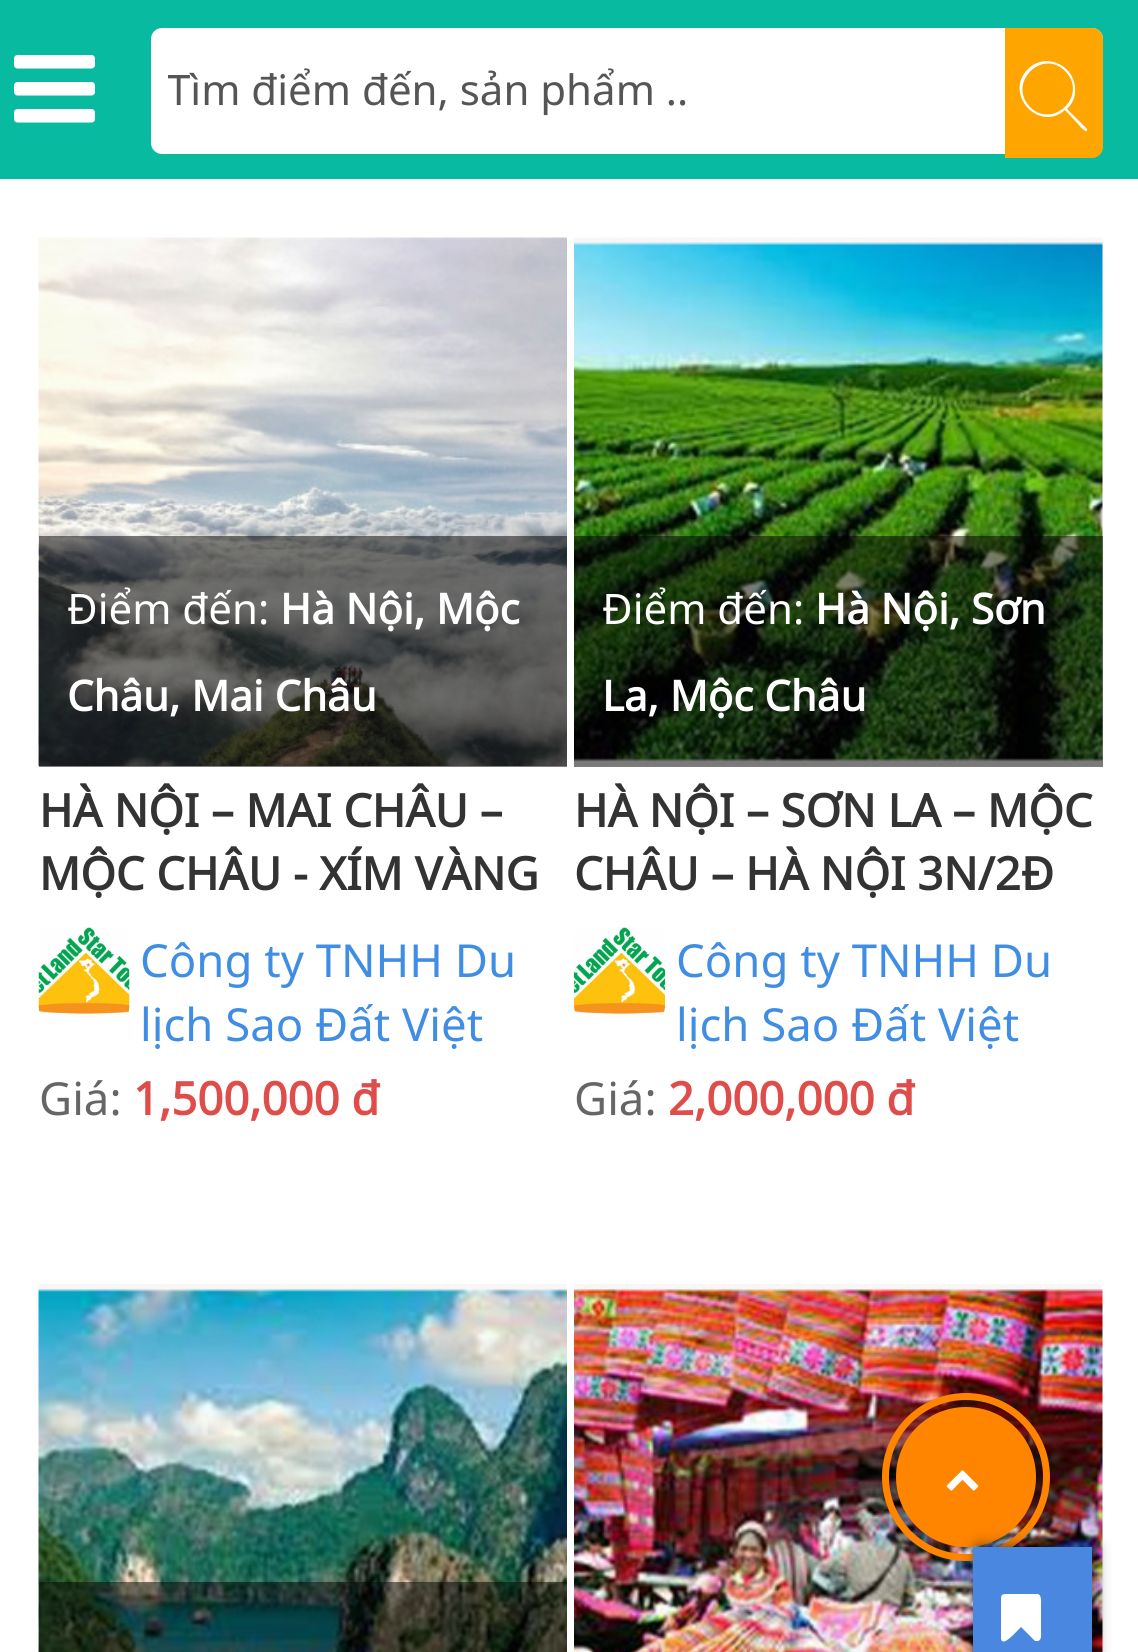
#include <cairo.h>
#include <math.h>
#include <stddef.h>


static void round_rect(cairo_t *cr, double x, double y, double w, double h, double r) {
    cairo_new_sub_path(cr);
    cairo_arc(cr, x + w - r, y + h - r, r, 0, M_PI / 2);
    cairo_arc(cr, x + r, y + h - r, r, M_PI / 2, M_PI);
    cairo_arc(cr, x + r, y + r, r, M_PI, 1.5 * M_PI);
    cairo_arc(cr, x + w - r, y + r, r, 1.5 * M_PI, 2 * M_PI);
    cairo_close_path(cr);
}

static void shadow(cairo_t *cr, double x, double y, double w, double h, double r, double blur, double alpha) {
    cairo_push_group_with_content(cr, CAIRO_CONTENT_ALPHA);
    cairo_set_operator(cr, CAIRO_OPERATOR_SOURCE);
    for (int i = 15; i >= -15 && fmin(w, h) + blur * i / 3 > 0; i -= 2) {
        double e = blur * i / 6;
        cairo_set_source_rgba(cr, 0, 0, 0, alpha * erfc((i - 1) / 8.5) / 2);
        round_rect(cr, x - e, y - e, w + 2 * e, h + 2 * e, fmax(0, fmin(r + e + blur * .6, fmin(w, h) / 2 + e)));
        cairo_fill(cr);
    }
    cairo_pattern_t *soft = cairo_pop_group(cr);
    cairo_mask(cr, soft);
    cairo_pattern_destroy(soft);
}

static void picture(cairo_t *cr, const char *path, double x, double y, double w, double h) {
    cairo_surface_t *image = cairo_image_surface_create_from_png(path);
    cairo_save(cr);
    cairo_set_source_surface(cr, image, x, y);
    cairo_rectangle(cr, x, y, w, h);
    cairo_fill(cr);
    cairo_restore(cr);
    cairo_surface_destroy(image);
}

int main(void) {
    cairo_surface_t *surface = cairo_image_surface_create(CAIRO_FORMAT_RGB24, 1138, 1652);
    cairo_t *cr = cairo_create(surface);
    cairo_font_options_t *options = cairo_font_options_create();
    cairo_font_options_set_hint_metrics(options, CAIRO_HINT_METRICS_OFF);
    cairo_font_options_set_hint_style(options, CAIRO_HINT_STYLE_NONE);
    cairo_set_font_options(cr, options);
    cairo_set_miter_limit(cr, 4);
    cairo_set_source_rgb(cr, 1, 1, 1);
    cairo_paint(cr);
    cairo_set_source_rgb(cr, 0.035, 0.729, 0.627);
    cairo_rectangle(cr, 0, 0, 1138, 179);
    cairo_fill(cr);
    picture(cr, "img1.png", 14, 55, 81, 68);
    cairo_set_source_rgb(cr, 1, 1, 1);
    round_rect(cr, 151, 28, 952, 126, 11);
    cairo_fill(cr);
    round_rect(cr, 151, 28, 941, 126, 14);
    cairo_fill(cr);
    cairo_save(cr);
    cairo_rectangle(cr, 168, 60, 907, 59);
    cairo_clip(cr);
    cairo_select_font_face(cr, "Noto Sans", CAIRO_FONT_SLANT_NORMAL, CAIRO_FONT_WEIGHT_NORMAL);
    cairo_set_font_size(cr, 42);
    cairo_set_source_rgb(cr, 0.333, 0.333, 0.333);
    cairo_move_to(cr, 167, 105);
    cairo_show_text(cr, "Tìm điểm đến, sản phẩm ..");
    cairo_restore(cr);
    cairo_set_source_rgb(cr, 1, 0.647, 0);
    cairo_new_path(cr);
    cairo_move_to(cr, 1005, 28);
    cairo_line_to(cr, 1092, 28);
    cairo_curve_to(cr, 1098, 28, 1103, 33, 1103, 39);
    cairo_line_to(cr, 1103, 147);
    cairo_curve_to(cr, 1103, 153, 1098, 158, 1092, 158);
    cairo_line_to(cr, 1005, 158);
    cairo_close_path(cr);
    cairo_fill(cr);
    cairo_set_source_rgb(cr, 1, 1, 1);
    cairo_new_path(cr);
    cairo_move_to(cr, 1087, 129);
    cairo_curve_to(cr, 1087, 130, 1087, 131, 1087, 131);
    cairo_curve_to(cr, 1084, 132, 1079, 125, 1078, 124);
    cairo_line_to(cr, 1065, 110);
    cairo_curve_to(cr, 1039, 133, 1003, 94, 1028, 69);
    cairo_curve_to(cr, 1046, 51, 1077, 66, 1075, 92);
    cairo_curve_to(cr, 1075, 98, 1072, 104, 1067, 109);
    cairo_close_path(cr);
    cairo_move_to(cr, 1030, 107);
    cairo_curve_to(cr, 1053, 130, 1089, 95, 1065, 71);
    cairo_curve_to(cr, 1042, 48, 1007, 83, 1030, 107);
    cairo_close_path(cr);
    cairo_fill(cr);
    picture(cr, "img7.png", 574, 1284, 529, 368);
    cairo_set_source_rgb(cr, 1, 0.518, 0);
    cairo_arc(cr, 966, 1477, 70, 0, 2 * M_PI);
    cairo_fill(cr);
    picture(cr, "img8.png", 946, 1470, 33, 21);
    cairo_arc(cr, 966, 1477, 80.5, 0, 2 * M_PI);
    cairo_set_line_width(cr, 7);
    cairo_stroke(cr);
    cairo_set_source_rgb(cr, 0, 0, 0);
    shadow(cr, 977, 1547, 119, 105, 0, 7, 0.62);
    cairo_set_source_rgb(cr, 0.286, 0.529, 0.882);
    cairo_rectangle(cr, 973, 1547, 119, 105);
    cairo_fill(cr);
    cairo_set_source_rgb(cr, 1, 1, 1);
    cairo_new_path(cr);
    cairo_move_to(cr, 1037, 1594);
    cairo_curve_to(cr, 1042, 1594, 1041, 1602, 1041, 1604);
    cairo_line_to(cr, 1041, 1631);
    cairo_curve_to(cr, 1041, 1634, 1042, 1640, 1038, 1641);
    cairo_line_to(cr, 1035, 1641);
    cairo_line_to(cr, 1021, 1627);
    cairo_curve_to(cr, 1014, 1634, 1003, 1647, 1001, 1639);
    cairo_line_to(cr, 1001, 1604);
    cairo_curve_to(cr, 1001, 1594, 1000, 1594, 1010, 1594);
    cairo_close_path(cr);
    cairo_fill(cr);
    picture(cr, "img2.png", 38, 237, 529, 529);
    cairo_set_source_rgba(cr, 0.008, 0.008, 0.008, 0.51);
    cairo_rectangle(cr, 39, 536, 528, 231);
    cairo_fill(cr);
    cairo_select_font_face(cr, "Noto Sans", CAIRO_FONT_SLANT_NORMAL, CAIRO_FONT_WEIGHT_NORMAL);
    cairo_set_font_size(cr, 42);
    cairo_set_source_rgb(cr, 1, 1, 1);
    cairo_move_to(cr, 67, 624);
    cairo_show_text(cr, "Điểm đến:");
    cairo_select_font_face(cr, "Noto Sans", CAIRO_FONT_SLANT_NORMAL, CAIRO_FONT_WEIGHT_BOLD);
    cairo_move_to(cr, 280, 624);
    cairo_show_text(cr, "Hà Nội, Mộc");
    cairo_move_to(cr, 67, 711);
    cairo_show_text(cr, "Châu, Mai Châu");
    cairo_set_font_size(cr, 45.5);
    cairo_set_source_rgb(cr, 0.2, 0.2, 0.2);
    cairo_move_to(cr, 39, 827);
    cairo_show_text(cr, "HÀ NỘI – MAI CHÂU –");
    cairo_move_to(cr, 39, 890);
    cairo_show_text(cr, "MỘC CHÂU - XÍM VÀNG");
    picture(cr, "img3.png", 38, 927, 92, 90);
    cairo_select_font_face(cr, "Noto Sans", CAIRO_FONT_SLANT_NORMAL, CAIRO_FONT_WEIGHT_NORMAL);
    cairo_set_source_rgb(cr, 0.251, 0.553, 0.894);
    cairo_move_to(cr, 140, 977);
    cairo_show_text(cr, "Công ty TNHH Du");
    cairo_move_to(cr, 140, 1041);
    cairo_show_text(cr, "lịch Sao Đất Việt");
    cairo_set_source_rgb(cr, 0.4, 0.4, 0.4);
    cairo_move_to(cr, 39, 1115);
    cairo_show_text(cr, "Giá:");
    cairo_select_font_face(cr, "Noto Sans", CAIRO_FONT_SLANT_NORMAL, CAIRO_FONT_WEIGHT_BOLD);
    cairo_set_source_rgb(cr, 0.875, 0.302, 0.294);
    cairo_move_to(cr, 133, 1115);
    cairo_show_text(cr, "1,500,000 đ");
    picture(cr, "img4.png", 574, 237, 529, 529);
    cairo_set_source_rgba(cr, 0.008, 0.008, 0.008, 0.51);
    cairo_rectangle(cr, 574, 536, 529, 231);
    cairo_fill(cr);
    cairo_select_font_face(cr, "Noto Sans", CAIRO_FONT_SLANT_NORMAL, CAIRO_FONT_WEIGHT_NORMAL);
    cairo_set_font_size(cr, 42);
    cairo_set_source_rgb(cr, 1, 1, 1);
    cairo_move_to(cr, 602, 624);
    cairo_show_text(cr, "Điểm đến:");
    cairo_select_font_face(cr, "Noto Sans", CAIRO_FONT_SLANT_NORMAL, CAIRO_FONT_WEIGHT_BOLD);
    cairo_move_to(cr, 815, 624);
    cairo_show_text(cr, "Hà Nội, Sơn");
    cairo_move_to(cr, 602, 711);
    cairo_show_text(cr, "La, Mộc Châu");
    cairo_set_font_size(cr, 45.5);
    cairo_set_source_rgb(cr, 0.2, 0.2, 0.2);
    cairo_move_to(cr, 574, 827);
    cairo_show_text(cr, "HÀ NỘI – SƠN LA – MỘC");
    cairo_move_to(cr, 574, 890);
    cairo_show_text(cr, "CHÂU – HÀ NỘI 3N/2Đ");
    picture(cr, "img5.png", 574, 927, 91, 90);
    cairo_select_font_face(cr, "Noto Sans", CAIRO_FONT_SLANT_NORMAL, CAIRO_FONT_WEIGHT_NORMAL);
    cairo_set_source_rgb(cr, 0.251, 0.553, 0.894);
    cairo_move_to(cr, 676, 977);
    cairo_show_text(cr, "Công ty TNHH Du");
    cairo_move_to(cr, 676, 1041);
    cairo_show_text(cr, "lịch Sao Đất Việt");
    cairo_set_source_rgb(cr, 0.4, 0.4, 0.4);
    cairo_move_to(cr, 574, 1115);
    cairo_show_text(cr, "Giá:");
    cairo_select_font_face(cr, "Noto Sans", CAIRO_FONT_SLANT_NORMAL, CAIRO_FONT_WEIGHT_BOLD);
    cairo_set_source_rgb(cr, 0.875, 0.302, 0.294);
    cairo_move_to(cr, 668, 1115);
    cairo_show_text(cr, "2,000,000 đ");
    picture(cr, "img6.png", 38, 1284, 529, 368);
    cairo_set_source_rgba(cr, 0.008, 0.008, 0.008, 0.51);
    cairo_rectangle(cr, 39, 1582, 528, 70);
    cairo_fill(cr);
    cairo_surface_write_to_png(surface, "page.png");
    cairo_font_options_destroy(options);
    cairo_destroy(cr);
    cairo_surface_destroy(surface);
    return 0;
}
